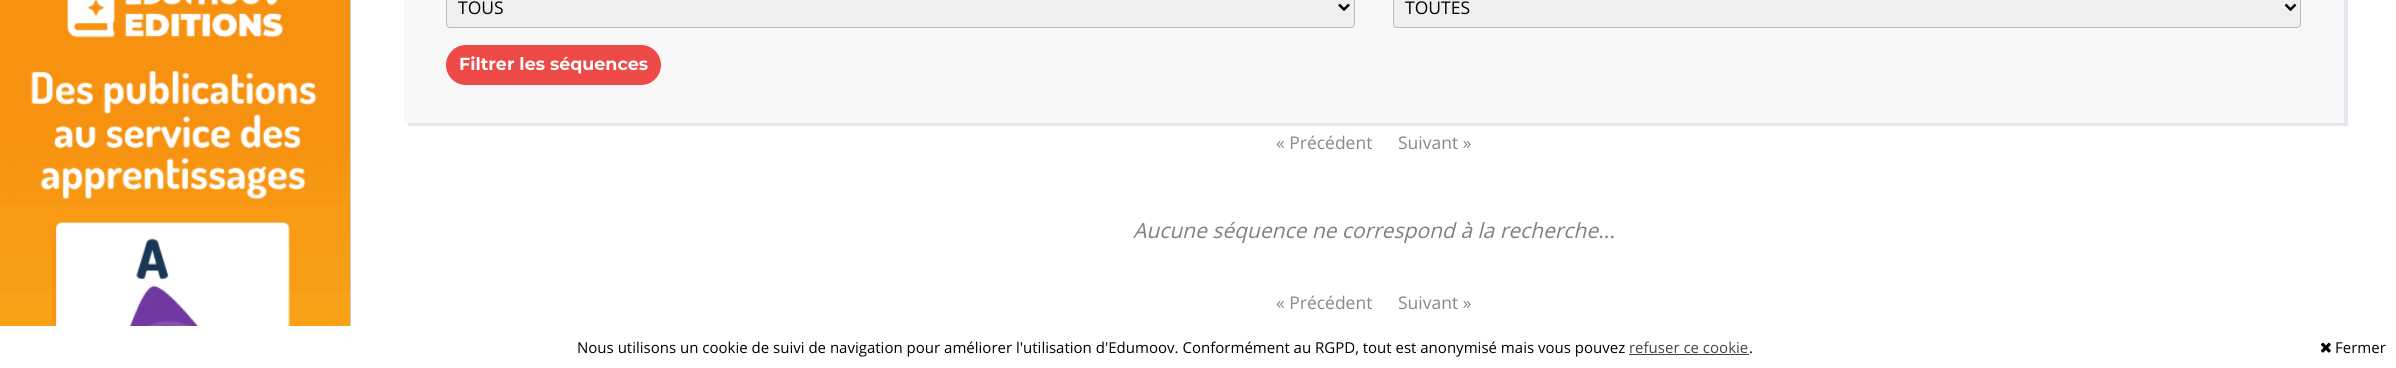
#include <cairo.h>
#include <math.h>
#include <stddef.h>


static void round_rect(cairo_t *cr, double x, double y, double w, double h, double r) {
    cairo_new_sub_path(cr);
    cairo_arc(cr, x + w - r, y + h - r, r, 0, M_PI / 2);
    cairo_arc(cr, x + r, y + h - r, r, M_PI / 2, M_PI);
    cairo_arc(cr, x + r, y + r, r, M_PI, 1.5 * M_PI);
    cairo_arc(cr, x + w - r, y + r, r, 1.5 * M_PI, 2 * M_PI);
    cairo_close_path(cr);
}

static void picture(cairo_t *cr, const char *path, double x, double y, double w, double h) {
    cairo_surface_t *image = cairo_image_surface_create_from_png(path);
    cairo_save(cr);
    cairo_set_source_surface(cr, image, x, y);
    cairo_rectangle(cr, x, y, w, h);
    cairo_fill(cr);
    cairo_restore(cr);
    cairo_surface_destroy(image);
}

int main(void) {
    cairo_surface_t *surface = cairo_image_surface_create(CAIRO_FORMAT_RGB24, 2396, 368);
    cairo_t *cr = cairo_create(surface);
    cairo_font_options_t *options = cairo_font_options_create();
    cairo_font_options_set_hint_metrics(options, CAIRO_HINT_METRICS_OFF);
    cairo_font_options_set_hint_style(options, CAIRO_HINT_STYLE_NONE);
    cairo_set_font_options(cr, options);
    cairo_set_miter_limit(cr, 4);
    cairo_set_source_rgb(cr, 1, 1, 1);
    cairo_paint(cr);
    picture(cr, "img1.png", 0, 0, 350, 326);
    cairo_set_source_rgb(cr, 0.8, 0.8, 0.8);
    cairo_rectangle(cr, 350, 0, 1, 326);
    cairo_fill(cr);
    cairo_set_source_rgb(cr, 0.902, 0.902, 0.941);
    cairo_new_path(cr);
    cairo_move_to(cr, 408, 122);
    cairo_line_to(cr, 408, 126);
    cairo_line_to(cr, 2348, 126);
    cairo_line_to(cr, 2348, -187);
    cairo_line_to(cr, 2344, -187);
    cairo_line_to(cr, 2344, 122);
    cairo_close_path(cr);
    cairo_fill(cr);
    cairo_set_source_rgb(cr, 0.969, 0.969, 0.969);
    cairo_rectangle(cr, 404, 0, 1940, 123);
    cairo_fill(cr);
    cairo_set_source_rgb(cr, 0.937, 0.937, 0.937);
    round_rect(cr, 446.5, -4.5, 908, 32, 3.5);
    cairo_fill_preserve(cr);
    cairo_set_source_rgb(cr, 0.733, 0.733, 0.733);
    cairo_set_line_width(cr, 1);
    cairo_stroke(cr);
    cairo_new_path(cr);
    cairo_move_to(cr, 1339, 4.5);
    cairo_line_to(cr, 1344, 9.5);
    cairo_line_to(cr, 1349, 4.5);
    cairo_set_source_rgb(cr, 0, 0, 0);
    cairo_set_line_width(cr, 2.5);
    cairo_stroke(cr);
    cairo_select_font_face(cr, "Open Sans", CAIRO_FONT_SLANT_NORMAL, CAIRO_FONT_WEIGHT_NORMAL);
    cairo_set_font_size(cr, 17.5);
    cairo_move_to(cr, 458, 14);
    cairo_show_text(cr, "TOUS");
    cairo_set_source_rgb(cr, 0.937, 0.937, 0.937);
    round_rect(cr, 1393.5, -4.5, 907, 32, 3.5);
    cairo_fill_preserve(cr);
    cairo_set_source_rgb(cr, 0.733, 0.733, 0.733);
    cairo_set_line_width(cr, 1);
    cairo_stroke(cr);
    cairo_new_path(cr);
    cairo_move_to(cr, 2285.5, 4.5);
    cairo_line_to(cr, 2290.5, 9.5);
    cairo_line_to(cr, 2295.5, 4.5);
    cairo_set_source_rgb(cr, 0, 0, 0);
    cairo_set_line_width(cr, 2.5);
    cairo_stroke(cr);
    cairo_move_to(cr, 1405, 14);
    cairo_show_text(cr, "TOUTES");
    cairo_set_source_rgb(cr, 0.929, 0.286, 0.275);
    round_rect(cr, 446, 45, 215, 40, 20);
    cairo_fill(cr);
    cairo_select_font_face(cr, "Montserrat", CAIRO_FONT_SLANT_NORMAL, CAIRO_FONT_WEIGHT_BOLD);
    cairo_set_source_rgb(cr, 1, 1, 1);
    cairo_move_to(cr, 459, 70);
    cairo_show_text(cr, "Filtrer les séquences");
    cairo_select_font_face(cr, "Open Sans", CAIRO_FONT_SLANT_NORMAL, CAIRO_FONT_WEIGHT_NORMAL);
    cairo_set_source_rgb(cr, 0.533, 0.533, 0.533);
    cairo_move_to(cr, 1276, 149);
    cairo_show_text(cr, "« Précédent");
    cairo_move_to(cr, 1398, 149);
    cairo_show_text(cr, "Suivant »");
    cairo_select_font_face(cr, "Open Sans", CAIRO_FONT_SLANT_ITALIC, CAIRO_FONT_WEIGHT_NORMAL);
    cairo_set_font_size(cr, 21);
    cairo_set_source_rgb(cr, 0.502, 0.502, 0.502);
    cairo_move_to(cr, 1133, 238);
    cairo_show_text(cr, "Aucune séquence ne correspond à la recherche...");
    cairo_select_font_face(cr, "Open Sans", CAIRO_FONT_SLANT_NORMAL, CAIRO_FONT_WEIGHT_NORMAL);
    cairo_set_font_size(cr, 17.5);
    cairo_set_source_rgb(cr, 0.533, 0.533, 0.533);
    cairo_move_to(cr, 1276, 309);
    cairo_show_text(cr, "« Précédent");
    cairo_move_to(cr, 1398, 309);
    cairo_show_text(cr, "Suivant »");
    cairo_set_font_size(cr, 15);
    cairo_set_source_rgb(cr, 0, 0, 0);
    cairo_move_to(cr, 577, 353);
    cairo_show_text(cr, "Nous utilisons un cookie de suivi de navigation pour améliorer l'utilisation d'Edumoov. Conformément au RGPD, tout est anonymisé mais vous pouvez");
    cairo_set_source_rgb(cr, 0.267, 0.267, 0.267);
    cairo_move_to(cr, 1629, 353);
    cairo_show_text(cr, "refuser ce cookie");
    cairo_rectangle(cr, 1629, 354, 120, 1);
    cairo_fill(cr);
    cairo_set_source_rgb(cr, 0, 0, 0);
    cairo_move_to(cr, 1749, 353);
    cairo_show_text(cr, ".");
    picture(cr, "img2.png", 2321, 342, 10, 11);
    cairo_move_to(cr, 2335, 353);
    cairo_show_text(cr, "Fermer");
    cairo_surface_write_to_png(surface, "page.png");
    cairo_font_options_destroy(options);
    cairo_destroy(cr);
    cairo_surface_destroy(surface);
    return 0;
}
